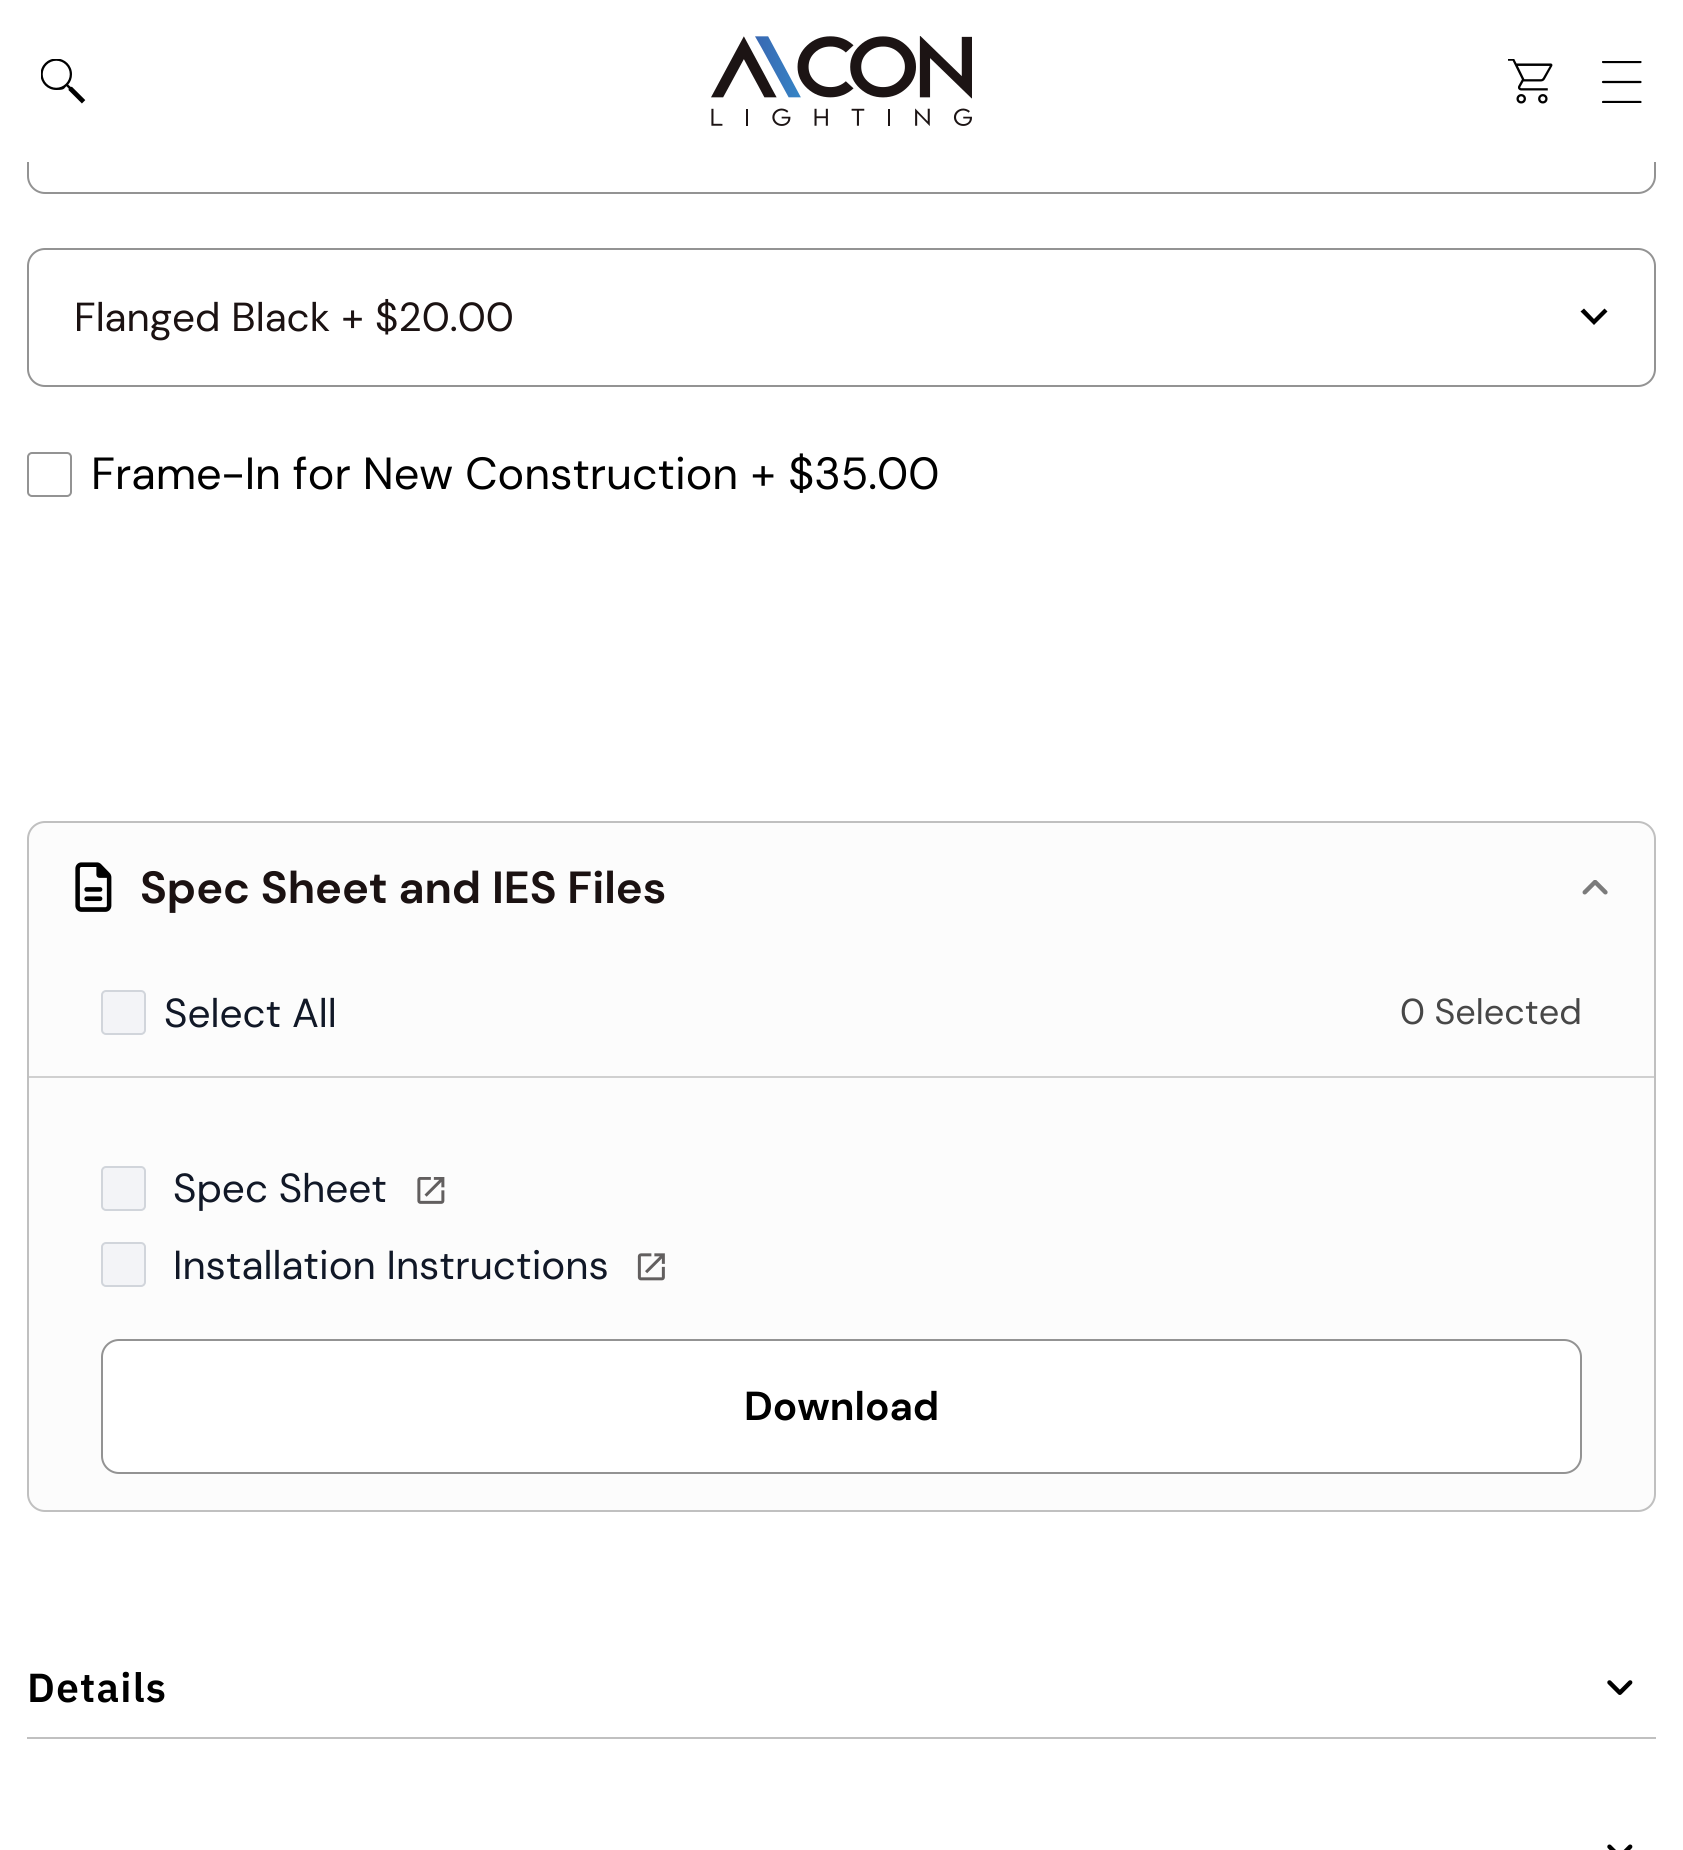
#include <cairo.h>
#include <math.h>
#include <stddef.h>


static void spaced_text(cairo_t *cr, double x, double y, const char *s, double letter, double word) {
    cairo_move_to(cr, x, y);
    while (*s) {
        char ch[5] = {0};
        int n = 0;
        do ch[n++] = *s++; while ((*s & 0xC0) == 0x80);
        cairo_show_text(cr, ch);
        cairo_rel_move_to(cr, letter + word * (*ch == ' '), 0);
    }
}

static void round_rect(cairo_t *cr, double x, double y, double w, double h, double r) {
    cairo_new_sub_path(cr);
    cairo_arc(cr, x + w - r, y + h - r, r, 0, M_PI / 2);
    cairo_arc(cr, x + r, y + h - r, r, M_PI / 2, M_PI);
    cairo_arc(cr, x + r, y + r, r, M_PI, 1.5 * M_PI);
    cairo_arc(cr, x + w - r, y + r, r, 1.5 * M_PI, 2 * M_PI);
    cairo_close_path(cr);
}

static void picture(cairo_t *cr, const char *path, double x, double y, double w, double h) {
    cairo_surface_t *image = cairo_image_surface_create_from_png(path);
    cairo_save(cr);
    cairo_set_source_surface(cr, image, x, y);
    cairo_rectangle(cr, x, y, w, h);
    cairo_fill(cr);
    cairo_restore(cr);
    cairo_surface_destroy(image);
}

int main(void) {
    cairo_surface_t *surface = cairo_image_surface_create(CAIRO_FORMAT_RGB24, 1683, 1850);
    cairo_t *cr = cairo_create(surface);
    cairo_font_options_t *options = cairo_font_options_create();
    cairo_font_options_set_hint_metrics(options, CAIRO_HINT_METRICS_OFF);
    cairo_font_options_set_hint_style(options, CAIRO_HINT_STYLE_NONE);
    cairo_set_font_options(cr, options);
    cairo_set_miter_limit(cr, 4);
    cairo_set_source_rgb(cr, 1, 1, 1);
    cairo_paint(cr);
    round_rect(cr, 28, 55, 1627, 138, 17);
    cairo_set_source_rgb(cr, 0.576, 0.576, 0.576);
    cairo_stroke(cr);
    cairo_set_source_rgb(cr, 1, 1, 1);
    cairo_rectangle(cr, 27, 54, 1629, 108);
    cairo_fill(cr);
    picture(cr, "img1.png", 711, 36, 261, 90);
    picture(cr, "img2.png", 41, 59, 45, 45);
    picture(cr, "img3.png", 1508, 59, 45, 45);
    cairo_save(cr);
    cairo_rectangle(cr, 1602, 61, 40, 42);
    cairo_clip(cr);
    cairo_new_path(cr);
    cairo_move_to(cr, 1603, 62);
    cairo_line_to(cr, 1640.5, 62);
    cairo_set_source_rgb(cr, 0, 0, 0);
    cairo_set_line_width(cr, 2.2);
    cairo_set_line_cap(cr, CAIRO_LINE_CAP_ROUND);
    cairo_stroke(cr);
    cairo_restore(cr);
    cairo_new_path(cr);
    cairo_move_to(cr, 1603, 82);
    cairo_line_to(cr, 1640.5, 82);
    cairo_set_source_rgb(cr, 0, 0, 0);
    cairo_set_line_width(cr, 2.2);
    cairo_set_line_cap(cr, CAIRO_LINE_CAP_ROUND);
    cairo_stroke(cr);
    cairo_save(cr);
    cairo_rectangle(cr, 1602, 61, 40, 42);
    cairo_clip(cr);
    cairo_new_path(cr);
    cairo_move_to(cr, 1603, 102);
    cairo_line_to(cr, 1640.5, 102);
    cairo_stroke(cr);
    cairo_restore(cr);
    cairo_new_path(cr);
    cairo_move_to(cr, 1584, 308.5);
    cairo_line_to(cr, 1594, 319);
    cairo_line_to(cr, 1604.5, 308.5);
    cairo_line_to(cr, 1607.5, 311.5);
    cairo_line_to(cr, 1594, 325);
    cairo_line_to(cr, 1580.5, 311.5);
    cairo_close_path(cr);
    cairo_fill(cr);
    round_rect(cr, 28, 249, 1627, 137, 17);
    cairo_set_source_rgb(cr, 0.576, 0.576, 0.576);
    cairo_set_line_width(cr, 2);
    cairo_set_line_cap(cr, CAIRO_LINE_CAP_BUTT);
    cairo_stroke(cr);
    cairo_select_font_face(cr, "DM Sans", CAIRO_FONT_SLANT_NORMAL, CAIRO_FONT_WEIGHT_NORMAL);
    cairo_set_font_size(cr, 40.5);
    cairo_set_source_rgb(cr, 0.106, 0.071, 0.071);
    cairo_move_to(cr, 74, 331);
    cairo_show_text(cr, "Flanged Black + $20.00");
    round_rect(cr, 28, 453, 43, 43, 4);
    cairo_set_source_rgb(cr, 0.576, 0.576, 0.576);
    cairo_stroke(cr);
    cairo_set_font_size(cr, 45);
    cairo_set_source_rgb(cr, 0, 0, 0);
    cairo_move_to(cr, 91, 489);
    cairo_show_text(cr, "Frame-In for New Construction + $35.00");
    cairo_set_source_rgb(cr, 0.988, 0.988, 0.988);
    round_rect(cr, 28, 822, 1627, 689, 17);
    cairo_fill_preserve(cr);
    cairo_set_source_rgb(cr, 0.753, 0.753, 0.753);
    cairo_stroke(cr);
    picture(cr, "img4.png", 75, 862, 37, 50);
    cairo_select_font_face(cr, "DM Sans", CAIRO_FONT_SLANT_NORMAL, CAIRO_FONT_WEIGHT_BOLD);
    cairo_set_source_rgb(cr, 0.106, 0.071, 0.071);
    cairo_move_to(cr, 140, 903);
    cairo_show_text(cr, "Spec Sheet and IES Files");
    picture(cr, "img5.png", 1582, 880, 26, 15);
    cairo_set_source_rgb(cr, 0.953, 0.957, 0.965);
    round_rect(cr, 102, 991, 43, 43, 4);
    cairo_fill_preserve(cr);
    cairo_set_source_rgb(cr, 0.82, 0.835, 0.859);
    cairo_stroke(cr);
    cairo_select_font_face(cr, "DM Sans", CAIRO_FONT_SLANT_NORMAL, CAIRO_FONT_WEIGHT_NORMAL);
    cairo_set_font_size(cr, 40.5);
    cairo_set_source_rgb(cr, 0.067, 0.094, 0.153);
    cairo_move_to(cr, 164, 1027);
    cairo_show_text(cr, "Select All");
    cairo_set_font_size(cr, 36);
    cairo_set_source_rgb(cr, 0.278, 0.278, 0.278);
    cairo_move_to(cr, 1400, 1024);
    cairo_show_text(cr, "0 Selected");
    cairo_set_source_rgb(cr, 0.816, 0.816, 0.816);
    cairo_rectangle(cr, 29, 1076, 1625, 2);
    cairo_fill(cr);
    cairo_set_source_rgb(cr, 0.953, 0.957, 0.965);
    round_rect(cr, 102, 1167, 43, 43, 4);
    cairo_fill_preserve(cr);
    cairo_set_source_rgb(cr, 0.82, 0.835, 0.859);
    cairo_stroke(cr);
    cairo_set_font_size(cr, 40.5);
    cairo_set_source_rgb(cr, 0.067, 0.094, 0.153);
    cairo_move_to(cr, 173, 1202);
    cairo_show_text(cr, "Spec Sheet");
    picture(cr, "img6.png", 417, 1177, 28, 27);
    cairo_set_source_rgb(cr, 0.953, 0.957, 0.965);
    round_rect(cr, 102, 1243, 43, 43, 4);
    cairo_fill_preserve(cr);
    cairo_set_source_rgb(cr, 0.82, 0.835, 0.859);
    cairo_stroke(cr);
    cairo_set_source_rgb(cr, 0.067, 0.094, 0.153);
    cairo_move_to(cr, 173, 1279);
    cairo_show_text(cr, "Installation Instructions");
    picture(cr, "img7.png", 637, 1253, 28, 28);
    cairo_set_source_rgb(cr, 1, 1, 1);
    round_rect(cr, 102, 1340, 1479, 133, 17);
    cairo_fill_preserve(cr);
    cairo_set_source_rgb(cr, 0.576, 0.576, 0.576);
    cairo_stroke(cr);
    cairo_select_font_face(cr, "DM Sans", CAIRO_FONT_SLANT_NORMAL, CAIRO_FONT_WEIGHT_BOLD);
    cairo_set_source_rgb(cr, 0, 0, 0);
    cairo_move_to(cr, 744, 1420);
    cairo_show_text(cr, "Download");
    cairo_set_source_rgb(cr, 0.753, 0.753, 0.753);
    cairo_rectangle(cr, 27, 1737, 1629, 2);
    cairo_fill(cr);
    cairo_select_font_face(cr, "IBM Plex Sans SemiBold", CAIRO_FONT_SLANT_NORMAL, CAIRO_FONT_WEIGHT_NORMAL);
    cairo_set_source_rgb(cr, 0, 0, 0);
    spaced_text(cr, 27, 1702, "Details", 1.25, 0);
    picture(cr, "img8.png", 1607, 1680, 26, 15);
    picture(cr, "img9.png", 1607, 1844, 26, 6);
    cairo_surface_write_to_png(surface, "page.png");
    cairo_font_options_destroy(options);
    cairo_destroy(cr);
    cairo_surface_destroy(surface);
    return 0;
}
